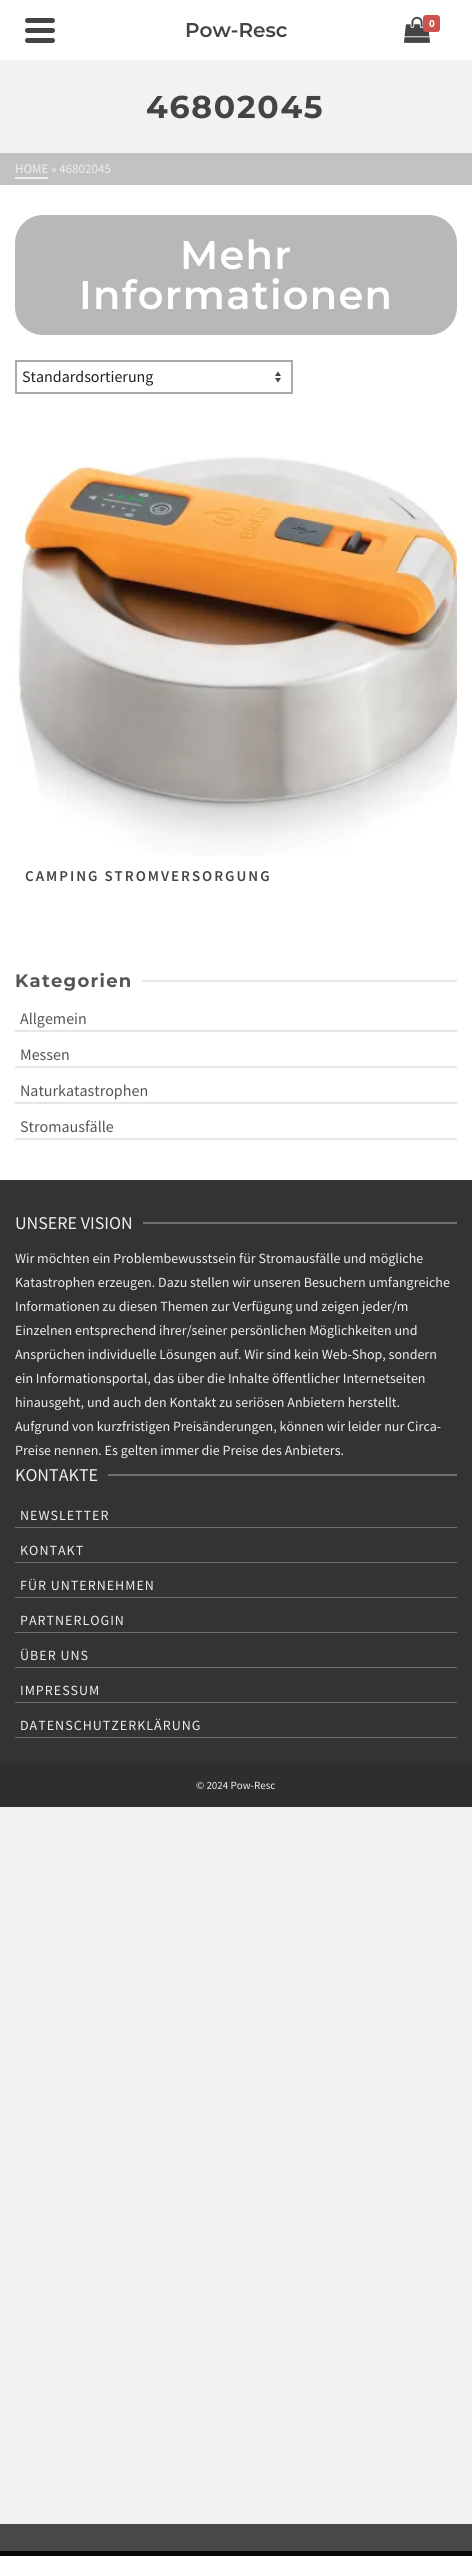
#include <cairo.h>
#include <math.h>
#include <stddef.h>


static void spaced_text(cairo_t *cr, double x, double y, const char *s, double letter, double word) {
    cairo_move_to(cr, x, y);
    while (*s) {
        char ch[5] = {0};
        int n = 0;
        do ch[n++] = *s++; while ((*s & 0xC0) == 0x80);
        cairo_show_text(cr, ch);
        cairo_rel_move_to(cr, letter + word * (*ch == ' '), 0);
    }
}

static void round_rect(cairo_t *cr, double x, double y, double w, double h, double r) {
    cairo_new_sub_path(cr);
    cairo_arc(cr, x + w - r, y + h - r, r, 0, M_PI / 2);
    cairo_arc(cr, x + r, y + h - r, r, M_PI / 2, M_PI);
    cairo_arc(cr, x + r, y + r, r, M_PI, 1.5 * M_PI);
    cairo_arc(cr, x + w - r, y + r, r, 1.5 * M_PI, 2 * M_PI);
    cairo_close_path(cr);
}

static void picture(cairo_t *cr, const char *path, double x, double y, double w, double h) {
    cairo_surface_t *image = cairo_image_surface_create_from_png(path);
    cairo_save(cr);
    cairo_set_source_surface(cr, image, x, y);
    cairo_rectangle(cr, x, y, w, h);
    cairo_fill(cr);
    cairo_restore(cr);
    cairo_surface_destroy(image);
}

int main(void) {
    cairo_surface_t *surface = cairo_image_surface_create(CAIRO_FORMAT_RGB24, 472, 2556);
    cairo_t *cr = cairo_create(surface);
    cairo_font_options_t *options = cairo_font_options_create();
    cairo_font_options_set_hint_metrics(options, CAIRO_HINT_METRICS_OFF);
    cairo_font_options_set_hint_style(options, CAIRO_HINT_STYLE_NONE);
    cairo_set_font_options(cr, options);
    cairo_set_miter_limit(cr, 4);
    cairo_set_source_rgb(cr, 0.949, 0.949, 0.949);
    cairo_paint(cr);
    cairo_set_source_rgb(cr, 1, 1, 1);
    cairo_rectangle(cr, 0, 0, 472, 60);
    cairo_fill(cr);
    cairo_set_source_rgb(cr, 0.267, 0.267, 0.267);
    round_rect(cr, 25, 18, 30, 5, 2.5);
    cairo_fill(cr);
    round_rect(cr, 25, 28, 30, 5, 2.5);
    cairo_fill(cr);
    round_rect(cr, 25, 38, 30, 5, 2.5);
    cairo_fill(cr);
    cairo_select_font_face(cr, "Montserrat SemiBold", CAIRO_FONT_SLANT_NORMAL, CAIRO_FONT_WEIGHT_NORMAL);
    cairo_set_font_size(cr, 20);
    cairo_move_to(cr, 185, 37);
    cairo_show_text(cr, "Pow-Resc");
    picture(cr, "img1.png", 404, 16, 26, 27);
    cairo_set_source_rgb(cr, 0.808, 0.325, 0.302);
    round_rect(cr, 423, 15, 17, 17, 3);
    cairo_fill(cr);
    cairo_select_font_face(cr, "Source Sans Pro", CAIRO_FONT_SLANT_NORMAL, CAIRO_FONT_WEIGHT_BOLD);
    cairo_set_font_size(cr, 11);
    cairo_set_source_rgb(cr, 1, 1, 1);
    cairo_move_to(cr, 429, 27);
    cairo_show_text(cr, "0");
    cairo_rectangle(cr, 0, 185, 472, 995);
    cairo_fill(cr);
    cairo_select_font_face(cr, "Montserrat", CAIRO_FONT_SLANT_NORMAL, CAIRO_FONT_WEIGHT_BOLD);
    cairo_set_font_size(cr, 31.5);
    cairo_set_source_rgb(cr, 0.267, 0.267, 0.267);
    spaced_text(cr, 146, 118, "46802045", 1.75, 0);
    cairo_set_source_rgb(cr, 0.761, 0.761, 0.761);
    cairo_rectangle(cr, 0, 153, 472, 32);
    cairo_fill(cr);
    cairo_select_font_face(cr, "Source Sans Pro", CAIRO_FONT_SLANT_NORMAL, CAIRO_FONT_WEIGHT_NORMAL);
    cairo_set_font_size(cr, 13);
    cairo_set_source_rgb(cr, 0.933, 0.933, 0.933);
    cairo_move_to(cr, 15, 173);
    cairo_show_text(cr, "HOME » 46802045");
    cairo_rectangle(cr, 15, 177, 33, 2);
    cairo_fill(cr);
    cairo_set_source_rgb(cr, 0.722, 0.722, 0.722);
    round_rect(cr, 15, 215, 442, 120, 28);
    cairo_fill(cr);
    cairo_select_font_face(cr, "Montserrat SemiBold", CAIRO_FONT_SLANT_NORMAL, CAIRO_FONT_WEIGHT_NORMAL);
    cairo_set_font_size(cr, 40);
    cairo_set_source_rgb(cr, 1, 1, 1);
    spaced_text(cr, 180, 269, "Mehr", 1.25, 0);
    spaced_text(cr, 79, 309, "Informationen", 1.25, 0);
    cairo_set_source_rgb(cr, 0.267, 0.267, 0.267);
    cairo_new_path(cr);
    cairo_move_to(cr, 275, 376);
    cairo_line_to(cr, 278, 371.5);
    cairo_line_to(cr, 281, 376);
    cairo_close_path(cr);
    cairo_move_to(cr, 281, 378);
    cairo_line_to(cr, 278, 382.5);
    cairo_line_to(cr, 275, 378);
    cairo_close_path(cr);
    cairo_fill(cr);
    cairo_rectangle(cr, 16, 361, 276, 32);
    cairo_set_source_rgb(cr, 0.667, 0.667, 0.667);
    cairo_stroke(cr);
    cairo_select_font_face(cr, "Source Sans Pro", CAIRO_FONT_SLANT_NORMAL, CAIRO_FONT_WEIGHT_NORMAL);
    cairo_set_font_size(cr, 16);
    cairo_set_source_rgb(cr, 0.133, 0.133, 0.133);
    cairo_move_to(cr, 22, 382);
    cairo_show_text(cr, "Standardsortierung");
    picture(cr, "img2.png", 15, 456, 442, 400);
    cairo_select_font_face(cr, "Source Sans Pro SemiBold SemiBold", CAIRO_FONT_SLANT_NORMAL, CAIRO_FONT_WEIGHT_NORMAL);
    cairo_set_font_size(cr, 15);
    cairo_set_source_rgb(cr, 0.267, 0.267, 0.267);
    spaced_text(cr, 25, 881, "CAMPING STROMVERSORGUNG", 2, 0);
    cairo_select_font_face(cr, "Montserrat", CAIRO_FONT_SLANT_NORMAL, CAIRO_FONT_WEIGHT_BOLD);
    cairo_set_font_size(cr, 18);
    cairo_set_source_rgb(cr, 0.333, 0.333, 0.333);
    spaced_text(cr, 15, 987, "Kategorien", 1.25, 0);
    cairo_set_source_rgb(cr, 0.902, 0.902, 0.902);
    cairo_rectangle(cr, 142, 980, 315, 2);
    cairo_fill(cr);
    cairo_rectangle(cr, 15, 1030, 442, 2);
    cairo_fill(cr);
    cairo_select_font_face(cr, "Source Sans Pro", CAIRO_FONT_SLANT_NORMAL, CAIRO_FONT_WEIGHT_NORMAL);
    cairo_set_font_size(cr, 16);
    cairo_set_source_rgb(cr, 0.333, 0.333, 0.333);
    cairo_move_to(cr, 20, 1024);
    cairo_show_text(cr, "Allgemein");
    cairo_set_source_rgb(cr, 0.902, 0.902, 0.902);
    cairo_rectangle(cr, 15, 1066, 442, 2);
    cairo_fill(cr);
    cairo_set_source_rgb(cr, 0.333, 0.333, 0.333);
    cairo_move_to(cr, 20, 1060);
    cairo_show_text(cr, "Messen");
    cairo_set_source_rgb(cr, 0.902, 0.902, 0.902);
    cairo_rectangle(cr, 15, 1102, 442, 2);
    cairo_fill(cr);
    cairo_set_source_rgb(cr, 0.333, 0.333, 0.333);
    cairo_move_to(cr, 20, 1096);
    cairo_show_text(cr, "Naturkatastrophen");
    cairo_set_source_rgb(cr, 0.902, 0.902, 0.902);
    cairo_rectangle(cr, 15, 1138, 442, 2);
    cairo_fill(cr);
    cairo_set_source_rgb(cr, 0.333, 0.333, 0.333);
    cairo_move_to(cr, 20, 1132);
    cairo_show_text(cr, "Stromausfälle");
    cairo_set_source_rgb(cr, 0.2, 0.2, 0.2);
    cairo_rectangle(cr, 0, 1180, 472, 583);
    cairo_fill(cr);
    cairo_set_font_size(cr, 18);
    cairo_set_source_rgb(cr, 0.933, 0.933, 0.933);
    cairo_move_to(cr, 15, 1229);
    cairo_show_text(cr, "UNSERE VISION");
    cairo_set_source_rgb(cr, 0.439, 0.439, 0.439);
    cairo_rectangle(cr, 143, 1222, 314, 2);
    cairo_fill(cr);
    cairo_set_font_size(cr, 14);
    cairo_set_source_rgb(cr, 0.933, 0.933, 0.933);
    cairo_move_to(cr, 15, 1263);
    cairo_show_text(cr, "Wir möchten ein Problembewusstsein für Stromausfälle und mögliche");
    cairo_move_to(cr, 15, 1287);
    cairo_show_text(cr, "Katastrophen erzeugen. Dazu stellen wir unseren Besuchern umfangreiche");
    cairo_move_to(cr, 15, 1311);
    cairo_show_text(cr, "Informationen zu diesen Themen zur Verfügung und zeigen jeder/m");
    cairo_move_to(cr, 15, 1335);
    cairo_show_text(cr, "Einzelnen entsprechend ihrer/seiner persönlichen Möglichkeiten und");
    cairo_move_to(cr, 15, 1359);
    cairo_show_text(cr, "Ansprüchen individuelle Lösungen auf. Wir sind kein Web-Shop, sondern");
    cairo_move_to(cr, 15, 1383);
    cairo_show_text(cr, "ein Informationsportal, das über die Inhalte öffentlicher Internetseiten");
    cairo_move_to(cr, 15, 1407);
    cairo_show_text(cr, "hinausgeht, und auch den Kontakt zu seriösen Anbietern herstellt.");
    cairo_move_to(cr, 15, 1431);
    cairo_show_text(cr, "Aufgrund von kurzfristigen Preisänderungen, können wir leider nur Circa-");
    cairo_move_to(cr, 15, 1455);
    cairo_show_text(cr, "Preise nennen. Es gelten immer die Preise des Anbieters.");
    cairo_set_font_size(cr, 18);
    cairo_move_to(cr, 15, 1481);
    cairo_show_text(cr, "KONTAKTE");
    cairo_set_source_rgb(cr, 0.439, 0.439, 0.439);
    cairo_rectangle(cr, 108, 1474, 349, 2);
    cairo_fill(cr);
    cairo_rectangle(cr, 15, 1527, 442, 1);
    cairo_fill(cr);
    cairo_set_font_size(cr, 14);
    cairo_set_source_rgb(cr, 0.933, 0.933, 0.933);
    spaced_text(cr, 20, 1520, "NEWSLETTER", 1, 0);
    cairo_set_source_rgb(cr, 0.439, 0.439, 0.439);
    cairo_rectangle(cr, 15, 1562, 442, 1);
    cairo_fill(cr);
    cairo_set_source_rgb(cr, 0.933, 0.933, 0.933);
    spaced_text(cr, 20, 1555, "KONTAKT", 1, 0);
    cairo_set_source_rgb(cr, 0.439, 0.439, 0.439);
    cairo_rectangle(cr, 15, 1597, 442, 1);
    cairo_fill(cr);
    cairo_set_source_rgb(cr, 0.933, 0.933, 0.933);
    spaced_text(cr, 20, 1590, "FÜR UNTERNEHMEN", 1, 0);
    cairo_set_source_rgb(cr, 0.439, 0.439, 0.439);
    cairo_rectangle(cr, 15, 1632, 442, 1);
    cairo_fill(cr);
    cairo_set_source_rgb(cr, 0.933, 0.933, 0.933);
    spaced_text(cr, 20, 1625, "PARTNERLOGIN", 1, 0);
    cairo_set_source_rgb(cr, 0.439, 0.439, 0.439);
    cairo_rectangle(cr, 15, 1667, 442, 1);
    cairo_fill(cr);
    cairo_set_source_rgb(cr, 0.933, 0.933, 0.933);
    spaced_text(cr, 20, 1660, "ÜBER UNS", 1, 0);
    cairo_set_source_rgb(cr, 0.439, 0.439, 0.439);
    cairo_rectangle(cr, 15, 1702, 442, 1);
    cairo_fill(cr);
    cairo_set_source_rgb(cr, 0.933, 0.933, 0.933);
    spaced_text(cr, 20, 1695, "IMPRESSUM", 1, 0);
    cairo_set_source_rgb(cr, 0.439, 0.439, 0.439);
    cairo_rectangle(cr, 15, 1737, 442, 1);
    cairo_fill(cr);
    cairo_set_source_rgb(cr, 0.933, 0.933, 0.933);
    spaced_text(cr, 20, 1730, "DATENSCHUTZERKLÄRUNG", 1, 0);
    cairo_set_source_rgb(cr, 0.18, 0.18, 0.18);
    cairo_rectangle(cr, 0, 1763, 472, 44);
    cairo_fill(cr);
    cairo_set_font_size(cr, 11);
    cairo_set_source_rgb(cr, 0.933, 0.933, 0.933);
    cairo_move_to(cr, 196, 1789);
    cairo_show_text(cr, "© 2024 Pow-Resc");
    cairo_set_source_rgb(cr, 0.286, 0.286, 0.286);
    cairo_rectangle(cr, 0, 2524, 472, 27);
    cairo_fill(cr);
    cairo_set_source_rgb(cr, 0.039, 0.039, 0.039);
    cairo_rectangle(cr, 0, 2551, 472, 5);
    cairo_fill(cr);
    cairo_surface_write_to_png(surface, "page.png");
    cairo_font_options_destroy(options);
    cairo_destroy(cr);
    cairo_surface_destroy(surface);
    return 0;
}
